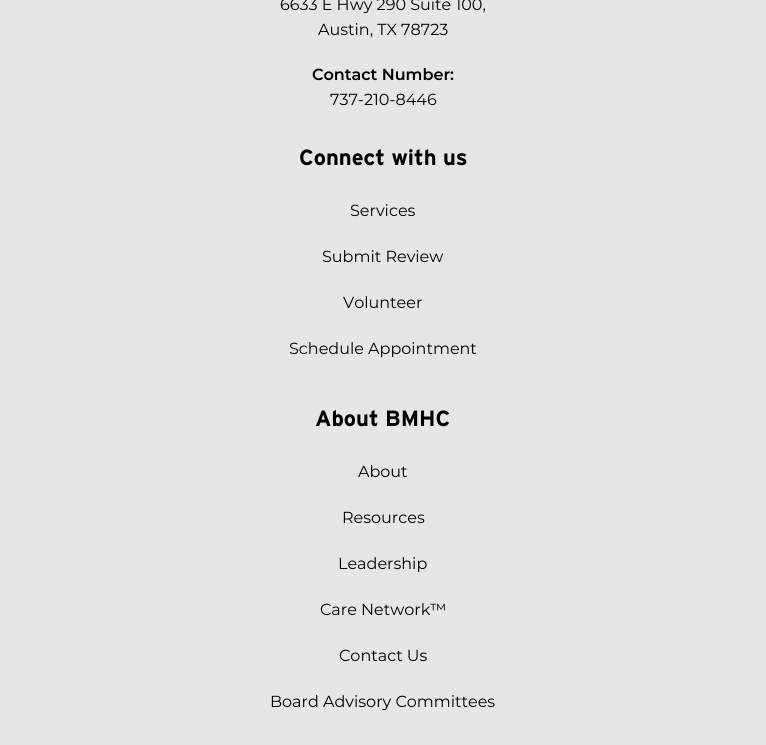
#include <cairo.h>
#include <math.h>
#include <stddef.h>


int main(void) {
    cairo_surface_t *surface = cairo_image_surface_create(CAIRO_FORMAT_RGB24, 766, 745);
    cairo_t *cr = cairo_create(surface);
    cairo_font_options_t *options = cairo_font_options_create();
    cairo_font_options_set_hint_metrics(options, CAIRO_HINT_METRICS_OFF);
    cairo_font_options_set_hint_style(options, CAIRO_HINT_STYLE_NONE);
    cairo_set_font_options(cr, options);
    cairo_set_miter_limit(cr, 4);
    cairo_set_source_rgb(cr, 0.902, 0.902, 0.902);
    cairo_paint(cr);
    cairo_select_font_face(cr, "Montserrat", CAIRO_FONT_SLANT_NORMAL, CAIRO_FONT_WEIGHT_NORMAL);
    cairo_set_font_size(cr, 16);
    cairo_set_source_rgb(cr, 0, 0, 0);
    cairo_move_to(cr, 280, 10);
    cairo_show_text(cr, "6633 E Hwy 290 Suite 100,");
    cairo_move_to(cr, 318, 35);
    cairo_show_text(cr, "Austin, TX 78723");
    cairo_select_font_face(cr, "Montserrat SemiBold", CAIRO_FONT_SLANT_NORMAL, CAIRO_FONT_WEIGHT_NORMAL);
    cairo_move_to(cr, 312, 80);
    cairo_show_text(cr, "Contact Number:");
    cairo_select_font_face(cr, "Montserrat", CAIRO_FONT_SLANT_NORMAL, CAIRO_FONT_WEIGHT_NORMAL);
    cairo_move_to(cr, 330, 105);
    cairo_show_text(cr, "737-210-8446");
    cairo_select_font_face(cr, "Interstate", CAIRO_FONT_SLANT_NORMAL, CAIRO_FONT_WEIGHT_BOLD);
    cairo_set_font_size(cr, 22);
    cairo_move_to(cr, 299, 165);
    cairo_show_text(cr, "Connect with us");
    cairo_select_font_face(cr, "Montserrat", CAIRO_FONT_SLANT_NORMAL, CAIRO_FONT_WEIGHT_NORMAL);
    cairo_set_font_size(cr, 16);
    cairo_move_to(cr, 350, 216);
    cairo_show_text(cr, "Services");
    cairo_move_to(cr, 322, 262);
    cairo_show_text(cr, "Submit Review");
    cairo_move_to(cr, 343, 308);
    cairo_show_text(cr, "Volunteer");
    cairo_move_to(cr, 289, 354);
    cairo_show_text(cr, "Schedule Appointment");
    cairo_select_font_face(cr, "Interstate", CAIRO_FONT_SLANT_NORMAL, CAIRO_FONT_WEIGHT_BOLD);
    cairo_set_font_size(cr, 22);
    cairo_move_to(cr, 315, 426);
    cairo_show_text(cr, "About BMHC");
    cairo_select_font_face(cr, "Montserrat", CAIRO_FONT_SLANT_NORMAL, CAIRO_FONT_WEIGHT_NORMAL);
    cairo_set_font_size(cr, 16);
    cairo_move_to(cr, 358, 477);
    cairo_show_text(cr, "About");
    cairo_move_to(cr, 342, 523);
    cairo_show_text(cr, "Resources");
    cairo_move_to(cr, 338, 569);
    cairo_show_text(cr, "Leadership");
    cairo_move_to(cr, 320, 615);
    cairo_show_text(cr, "Care Network™");
    cairo_move_to(cr, 339, 661);
    cairo_show_text(cr, "Contact Us");
    cairo_move_to(cr, 270, 707);
    cairo_show_text(cr, "Board Advisory Committees");
    cairo_surface_write_to_png(surface, "page.png");
    cairo_font_options_destroy(options);
    cairo_destroy(cr);
    cairo_surface_destroy(surface);
    return 0;
}
